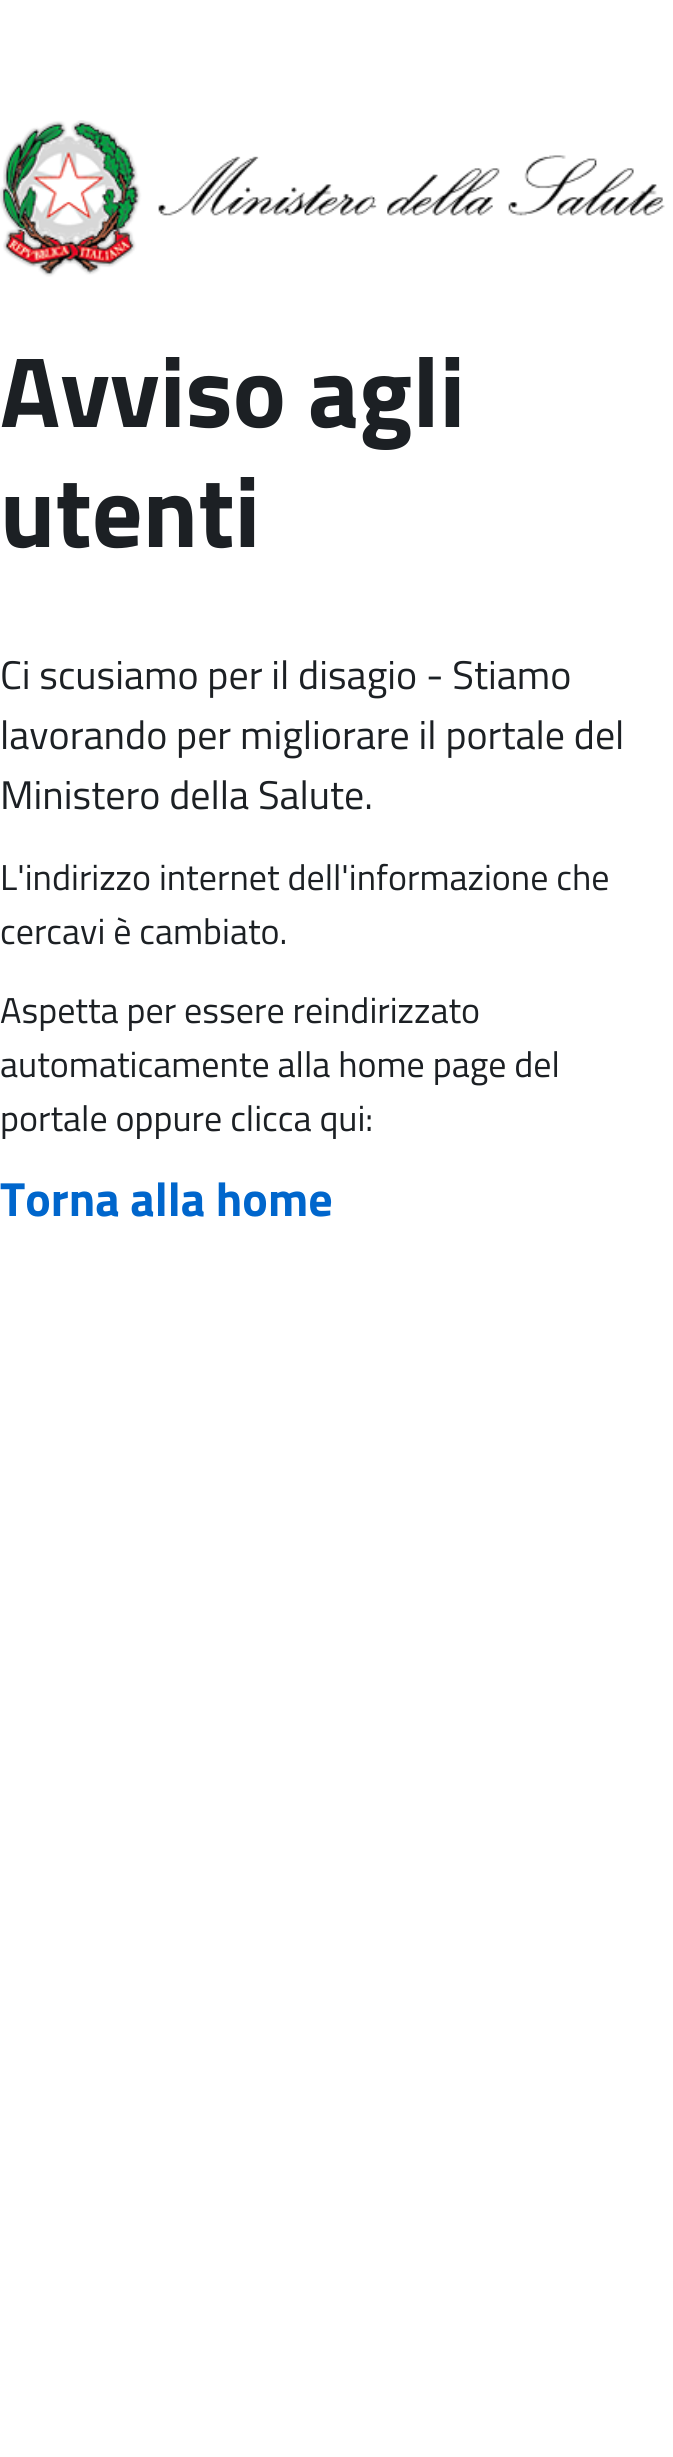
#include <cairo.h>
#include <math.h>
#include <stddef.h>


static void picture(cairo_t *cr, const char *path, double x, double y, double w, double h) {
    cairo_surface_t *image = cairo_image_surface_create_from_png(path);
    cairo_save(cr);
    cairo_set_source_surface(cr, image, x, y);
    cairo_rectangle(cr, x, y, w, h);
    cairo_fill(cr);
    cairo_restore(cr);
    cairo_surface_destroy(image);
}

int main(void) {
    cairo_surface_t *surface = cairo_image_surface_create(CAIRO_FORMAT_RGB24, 673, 2457);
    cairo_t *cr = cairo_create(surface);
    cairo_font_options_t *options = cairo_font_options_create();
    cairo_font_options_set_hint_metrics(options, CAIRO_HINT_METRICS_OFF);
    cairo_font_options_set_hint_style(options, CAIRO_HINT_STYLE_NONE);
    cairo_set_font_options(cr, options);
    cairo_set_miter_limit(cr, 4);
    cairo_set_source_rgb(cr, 1, 1, 1);
    cairo_paint(cr);
    picture(cr, "img1.png", 0, 120, 665, 157);
    cairo_select_font_face(cr, "Titillium Web", CAIRO_FONT_SLANT_NORMAL, CAIRO_FONT_WEIGHT_BOLD);
    cairo_set_font_size(cr, 100);
    cairo_set_source_rgb(cr, 0.11, 0.125, 0.141);
    cairo_move_to(cr, 0, 427);
    cairo_show_text(cr, "Avviso agli");
    cairo_move_to(cr, 0, 547);
    cairo_show_text(cr, "utenti");
    cairo_select_font_face(cr, "Titillium Web", CAIRO_FONT_SLANT_NORMAL, CAIRO_FONT_WEIGHT_NORMAL);
    cairo_set_font_size(cr, 40);
    cairo_move_to(cr, 0, 689);
    cairo_show_text(cr, "Ci scusiamo per il disagio - Stiamo");
    cairo_move_to(cr, 0, 749);
    cairo_show_text(cr, "lavorando per migliorare il portale del");
    cairo_move_to(cr, 0, 809);
    cairo_show_text(cr, "Ministero della Salute.");
    cairo_set_font_size(cr, 36);
    cairo_move_to(cr, 0, 890);
    cairo_show_text(cr, "L'indirizzo internet dell'informazione che");
    cairo_move_to(cr, 0, 944);
    cairo_show_text(cr, "cercavi è cambiato.");
    cairo_move_to(cr, 0, 1023);
    cairo_show_text(cr, "Aspetta per essere reindirizzato");
    cairo_move_to(cr, 0, 1077);
    cairo_show_text(cr, "automaticamente alla home page del");
    cairo_move_to(cr, 0, 1131);
    cairo_show_text(cr, "portale oppure clicca qui:");
    cairo_select_font_face(cr, "Titillium Web", CAIRO_FONT_SLANT_NORMAL, CAIRO_FONT_WEIGHT_BOLD);
    cairo_set_font_size(cr, 48);
    cairo_set_source_rgb(cr, 0, 0.4, 0.8);
    cairo_move_to(cr, 0, 1216);
    cairo_show_text(cr, "Torna alla home");
    cairo_surface_write_to_png(surface, "page.png");
    cairo_font_options_destroy(options);
    cairo_destroy(cr);
    cairo_surface_destroy(surface);
    return 0;
}
